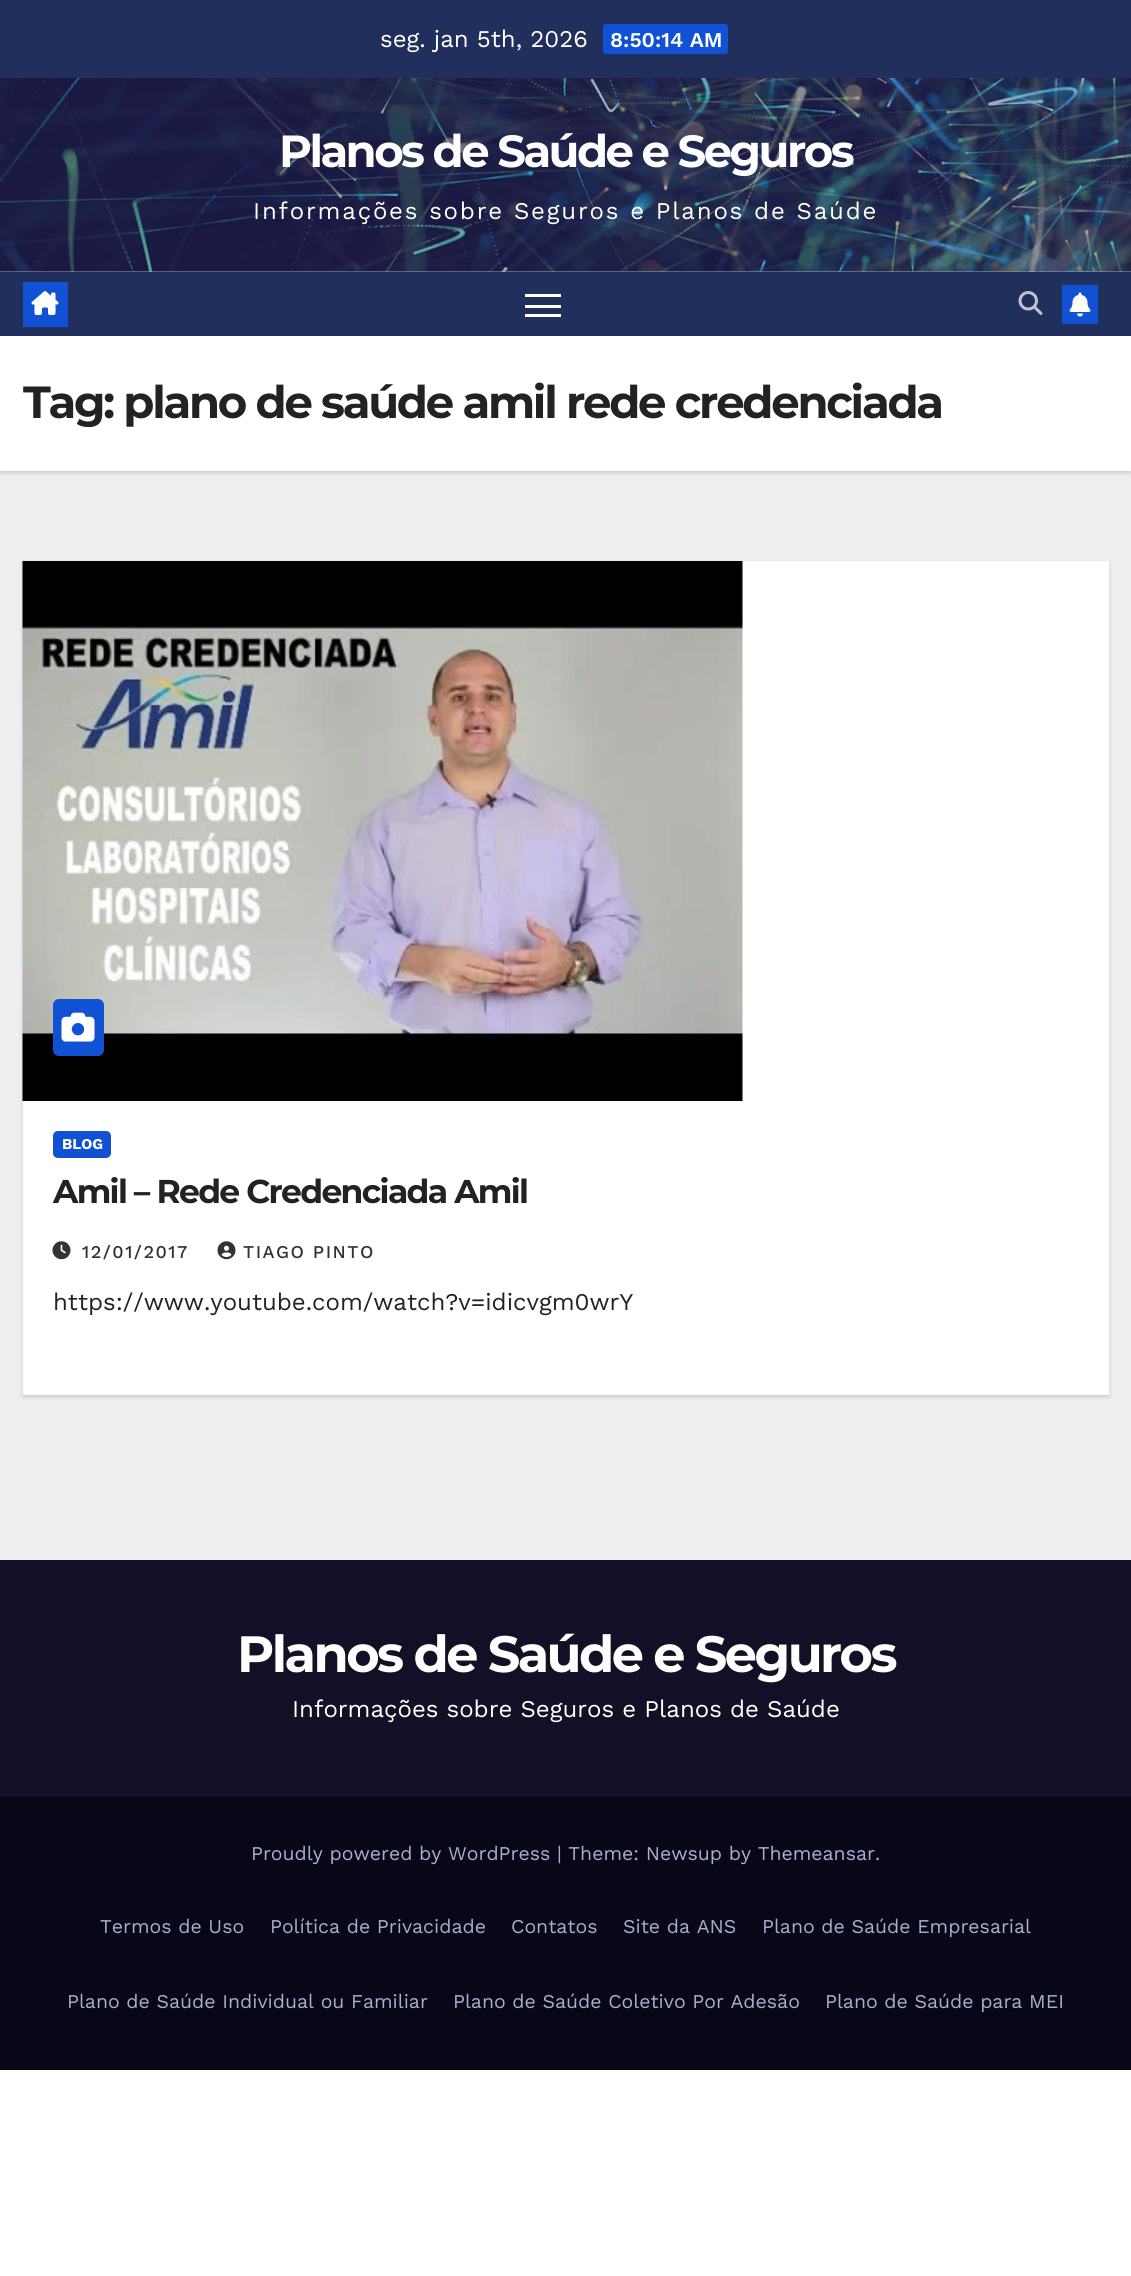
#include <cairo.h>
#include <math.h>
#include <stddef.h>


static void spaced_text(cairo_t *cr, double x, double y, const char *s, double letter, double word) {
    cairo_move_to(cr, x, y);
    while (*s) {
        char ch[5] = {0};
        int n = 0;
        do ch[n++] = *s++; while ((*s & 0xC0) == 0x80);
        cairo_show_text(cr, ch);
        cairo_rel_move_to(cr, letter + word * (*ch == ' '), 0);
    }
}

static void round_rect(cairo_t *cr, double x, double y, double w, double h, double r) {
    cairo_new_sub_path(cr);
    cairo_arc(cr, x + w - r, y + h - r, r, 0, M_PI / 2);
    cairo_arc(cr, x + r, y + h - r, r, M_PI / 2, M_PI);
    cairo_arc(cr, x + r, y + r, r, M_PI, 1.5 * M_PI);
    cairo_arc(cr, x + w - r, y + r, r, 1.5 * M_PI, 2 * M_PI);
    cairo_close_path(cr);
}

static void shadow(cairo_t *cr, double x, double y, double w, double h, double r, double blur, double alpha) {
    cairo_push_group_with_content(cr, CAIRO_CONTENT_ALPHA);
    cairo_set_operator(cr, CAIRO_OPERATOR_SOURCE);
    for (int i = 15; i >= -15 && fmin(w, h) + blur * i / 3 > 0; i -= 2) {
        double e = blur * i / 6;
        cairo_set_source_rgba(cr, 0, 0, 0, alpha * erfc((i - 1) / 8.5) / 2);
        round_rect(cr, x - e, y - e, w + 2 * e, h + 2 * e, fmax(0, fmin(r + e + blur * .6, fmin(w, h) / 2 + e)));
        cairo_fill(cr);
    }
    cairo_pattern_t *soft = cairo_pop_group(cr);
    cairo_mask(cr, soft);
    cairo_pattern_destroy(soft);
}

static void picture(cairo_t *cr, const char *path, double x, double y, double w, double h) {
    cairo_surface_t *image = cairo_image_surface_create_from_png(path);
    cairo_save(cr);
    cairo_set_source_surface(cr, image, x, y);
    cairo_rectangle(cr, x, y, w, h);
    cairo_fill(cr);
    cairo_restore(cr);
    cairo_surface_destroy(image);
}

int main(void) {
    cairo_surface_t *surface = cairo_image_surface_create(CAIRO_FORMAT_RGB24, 1131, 2276);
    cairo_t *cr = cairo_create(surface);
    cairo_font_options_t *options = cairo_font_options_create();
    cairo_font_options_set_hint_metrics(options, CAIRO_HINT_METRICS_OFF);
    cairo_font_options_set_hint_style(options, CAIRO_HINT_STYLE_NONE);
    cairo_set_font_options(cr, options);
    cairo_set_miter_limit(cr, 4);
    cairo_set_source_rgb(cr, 1, 1, 1);
    cairo_paint(cr);
    cairo_set_source_rgb(cr, 0.933, 0.933, 0.933);
    cairo_rectangle(cr, 0, 471, 1131, 1089);
    cairo_fill(cr);
    cairo_set_source_rgb(cr, 0.612, 0.635, 0.702);
    cairo_rectangle(cr, 0, 271, 1131, 1);
    cairo_fill(cr);
    cairo_set_source_rgb(cr, 0.125, 0.184, 0.357);
    cairo_rectangle(cr, 0, 0, 1131, 78);
    cairo_fill(cr);
    cairo_select_font_face(cr, "Work Sans", CAIRO_FONT_SLANT_NORMAL, CAIRO_FONT_WEIGHT_NORMAL);
    cairo_set_font_size(cr, 24);
    cairo_set_source_rgb(cr, 1, 1, 1);
    cairo_move_to(cr, 380, 47);
    cairo_show_text(cr, "seg. jan 5th, 2026");
    cairo_set_source_rgb(cr, 0.067, 0.318, 0.827);
    round_rect(cr, 603, 24, 125, 30, 3);
    cairo_fill(cr);
    cairo_select_font_face(cr, "Work Sans SemiBold", CAIRO_FONT_SLANT_NORMAL, CAIRO_FONT_WEIGHT_NORMAL);
    cairo_set_font_size(cr, 21);
    cairo_set_source_rgb(cr, 1, 1, 1);
    cairo_move_to(cr, 610, 47);
    cairo_show_text(cr, "8:50:14 AM");
    picture(cr, "img1.png", 0, 78, 1131, 194);
    cairo_select_font_face(cr, "Montserrat", CAIRO_FONT_SLANT_NORMAL, CAIRO_FONT_WEIGHT_BOLD);
    cairo_set_font_size(cr, 45);
    spaced_text(cr, 279, 167, "Planos de Saúde e Seguros", -2.55, 0);
    cairo_select_font_face(cr, "Work Sans", CAIRO_FONT_SLANT_NORMAL, CAIRO_FONT_WEIGHT_NORMAL);
    cairo_set_font_size(cr, 24);
    spaced_text(cr, 253, 219, "Informações sobre Seguros e Planos de Saúde", 1.8, 0);
    cairo_set_source_rgb(cr, 0, 0, 0);
    shadow(cr, 0, 338, 1131, 135, 0, 2, 0.15);
    cairo_set_source_rgb(cr, 0.125, 0.184, 0.357);
    cairo_rectangle(cr, 0, 272, 1131, 64);
    cairo_fill(cr);
    cairo_set_source_rgb(cr, 0.067, 0.318, 0.827);
    cairo_rectangle(cr, 23, 282, 45, 45);
    cairo_fill(cr);
    picture(cr, "img2.png", 31, 291, 28, 24);
    cairo_set_source_rgb(cr, 1, 1, 1);
    cairo_rectangle(cr, 525, 294, 36, 3);
    cairo_fill(cr);
    cairo_rectangle(cr, 525, 305, 36, 3);
    cairo_fill(cr);
    cairo_rectangle(cr, 525, 314, 36, 3);
    cairo_fill(cr);
    picture(cr, "img3.png", 1018, 291, 25, 24);
    cairo_set_source_rgb(cr, 0.067, 0.318, 0.827);
    cairo_rectangle(cr, 1062, 285, 36, 39);
    cairo_fill(cr);
    picture(cr, "img4.png", 1069, 292, 22, 25);
    cairo_set_source_rgb(cr, 1, 1, 1);
    cairo_rectangle(cr, 0, 336, 1131, 135);
    cairo_fill(cr);
    cairo_select_font_face(cr, "Montserrat", CAIRO_FONT_SLANT_NORMAL, CAIRO_FONT_WEIGHT_BOLD);
    cairo_set_font_size(cr, 45);
    cairo_set_source_rgb(cr, 0.133, 0.133, 0.133);
    spaced_text(cr, 23, 418, "Tag: plano de saúde amil rede credenciada", -2.25, 0);
    cairo_set_source_rgb(cr, 0, 0, 0);
    shadow(cr, 23, 563, 1086, 834, 0, 2, 0.15);
    cairo_set_source_rgb(cr, 1, 1, 1);
    cairo_rectangle(cr, 23, 561, 1086, 834);
    cairo_fill(cr);
    picture(cr, "img5.png", 22, 561, 721, 540);
    cairo_set_source_rgb(cr, 0.067, 0.318, 0.827);
    round_rect(cr, 53, 999, 51, 57, 6);
    cairo_fill(cr);
    picture(cr, "img6.png", 61, 1012, 34, 30);
    round_rect(cr, 53, 1131, 58, 27, 5);
    cairo_fill(cr);
    cairo_select_font_face(cr, "Work Sans", CAIRO_FONT_SLANT_NORMAL, CAIRO_FONT_WEIGHT_BOLD);
    cairo_set_font_size(cr, 15);
    cairo_set_source_rgb(cr, 1, 1, 1);
    cairo_move_to(cr, 62, 1149);
    cairo_show_text(cr, "BLOG");
    cairo_select_font_face(cr, "Montserrat", CAIRO_FONT_SLANT_NORMAL, CAIRO_FONT_WEIGHT_BOLD);
    cairo_set_font_size(cr, 33);
    cairo_set_source_rgb(cr, 0.133, 0.133, 0.133);
    spaced_text(cr, 53, 1203, "Amil – Rede Credenciada Amil", -1.65, 0);
    picture(cr, "img7.png", 52, 1241, 19, 19);
    cairo_select_font_face(cr, "Work Sans Medium", CAIRO_FONT_SLANT_NORMAL, CAIRO_FONT_WEIGHT_NORMAL);
    cairo_set_font_size(cr, 18);
    cairo_set_source_rgb(cr, 0.2, 0.2, 0.2);
    spaced_text(cr, 82, 1258, "12/01/2017", 1.5, 0);
    picture(cr, "img8.png", 217, 1241, 19, 19);
    spaced_text(cr, 243, 1258, "TIAGO PINTO", 1.5, 0);
    cairo_select_font_face(cr, "Work Sans", CAIRO_FONT_SLANT_NORMAL, CAIRO_FONT_WEIGHT_NORMAL);
    cairo_set_font_size(cr, 24);
    cairo_set_source_rgb(cr, 0.133, 0.133, 0.133);
    cairo_move_to(cr, 53, 1310);
    cairo_show_text(cr, "https://www.youtube.com/watch?v=idicvgm0wrY");
    cairo_set_source_rgb(cr, 0.071, 0.063, 0.149);
    cairo_rectangle(cr, 0, 1560, 1131, 237);
    cairo_fill(cr);
    cairo_select_font_face(cr, "Montserrat", CAIRO_FONT_SLANT_NORMAL, CAIRO_FONT_WEIGHT_BOLD);
    cairo_set_font_size(cr, 51);
    cairo_set_source_rgb(cr, 1, 1, 1);
    spaced_text(cr, 237, 1672, "Planos de Saúde e Seguros", -2.55, 0);
    cairo_select_font_face(cr, "Work Sans", CAIRO_FONT_SLANT_NORMAL, CAIRO_FONT_WEIGHT_NORMAL);
    cairo_set_font_size(cr, 24);
    cairo_move_to(cr, 292, 1717);
    cairo_show_text(cr, "Informações sobre Seguros e Planos de Saúde");
    cairo_set_source_rgb(cr, 0.035, 0.031, 0.094);
    cairo_rectangle(cr, 0, 1797, 1131, 273);
    cairo_fill(cr);
    cairo_set_font_size(cr, 19.5);
    cairo_set_source_rgb(cr, 0.667, 0.682, 0.82);
    cairo_move_to(cr, 251, 1860);
    cairo_show_text(cr, "Proudly powered by WordPress | Theme: Newsup by Themeansar.");
    cairo_move_to(cr, 100, 1933);
    cairo_show_text(cr, "Termos de Uso");
    cairo_move_to(cr, 270, 1933);
    cairo_show_text(cr, "Política de Privacidade");
    cairo_move_to(cr, 511, 1933);
    cairo_show_text(cr, "Contatos");
    cairo_move_to(cr, 623, 1933);
    cairo_show_text(cr, "Site da ANS");
    cairo_move_to(cr, 762, 1933);
    cairo_show_text(cr, "Plano de Saúde Empresarial");
    cairo_move_to(cr, 67, 2008);
    cairo_show_text(cr, "Plano de Saúde Individual ou Familiar");
    cairo_move_to(cr, 453, 2008);
    cairo_show_text(cr, "Plano de Saúde Coletivo Por Adesão");
    cairo_move_to(cr, 825, 2008);
    cairo_show_text(cr, "Plano de Saúde para MEI");
    cairo_surface_write_to_png(surface, "page.png");
    cairo_font_options_destroy(options);
    cairo_destroy(cr);
    cairo_surface_destroy(surface);
    return 0;
}
